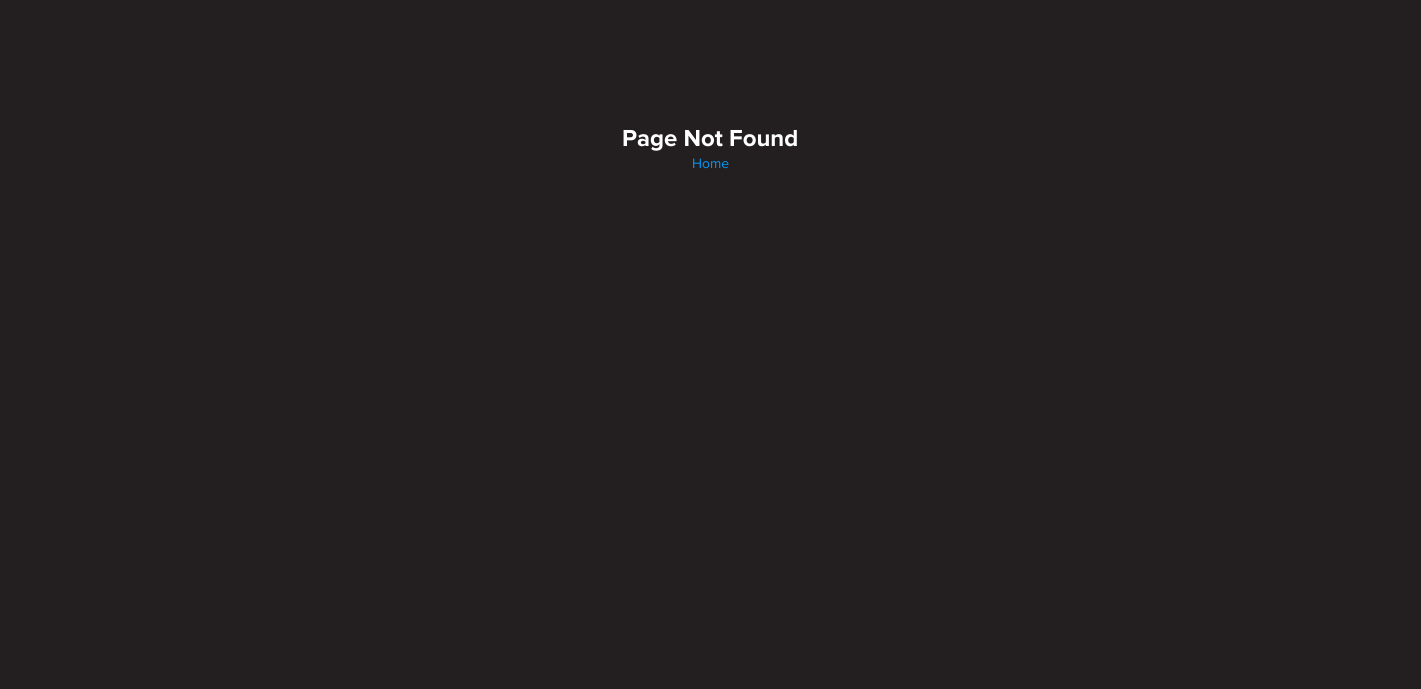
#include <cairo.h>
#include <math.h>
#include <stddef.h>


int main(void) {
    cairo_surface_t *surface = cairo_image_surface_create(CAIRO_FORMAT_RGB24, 1421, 689);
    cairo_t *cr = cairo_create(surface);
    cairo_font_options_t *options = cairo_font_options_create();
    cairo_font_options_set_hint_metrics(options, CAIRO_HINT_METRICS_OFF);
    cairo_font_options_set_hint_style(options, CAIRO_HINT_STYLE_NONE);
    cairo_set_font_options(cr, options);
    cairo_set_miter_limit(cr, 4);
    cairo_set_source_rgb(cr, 0.137, 0.122, 0.125);
    cairo_paint(cr);
    cairo_select_font_face(cr, "Proxima Nova", CAIRO_FONT_SLANT_NORMAL, CAIRO_FONT_WEIGHT_BOLD);
    cairo_set_font_size(cr, 24);
    cairo_set_source_rgb(cr, 1, 1, 1);
    cairo_move_to(cr, 622, 146);
    cairo_show_text(cr, "Page Not Found");
    cairo_select_font_face(cr, "Proxima Nova", CAIRO_FONT_SLANT_NORMAL, CAIRO_FONT_WEIGHT_NORMAL);
    cairo_set_font_size(cr, 14);
    cairo_set_source_rgb(cr, 0, 0.6, 0.969);
    cairo_move_to(cr, 692, 168);
    cairo_show_text(cr, "Home");
    cairo_surface_write_to_png(surface, "page.png");
    cairo_font_options_destroy(options);
    cairo_destroy(cr);
    cairo_surface_destroy(surface);
    return 0;
}
